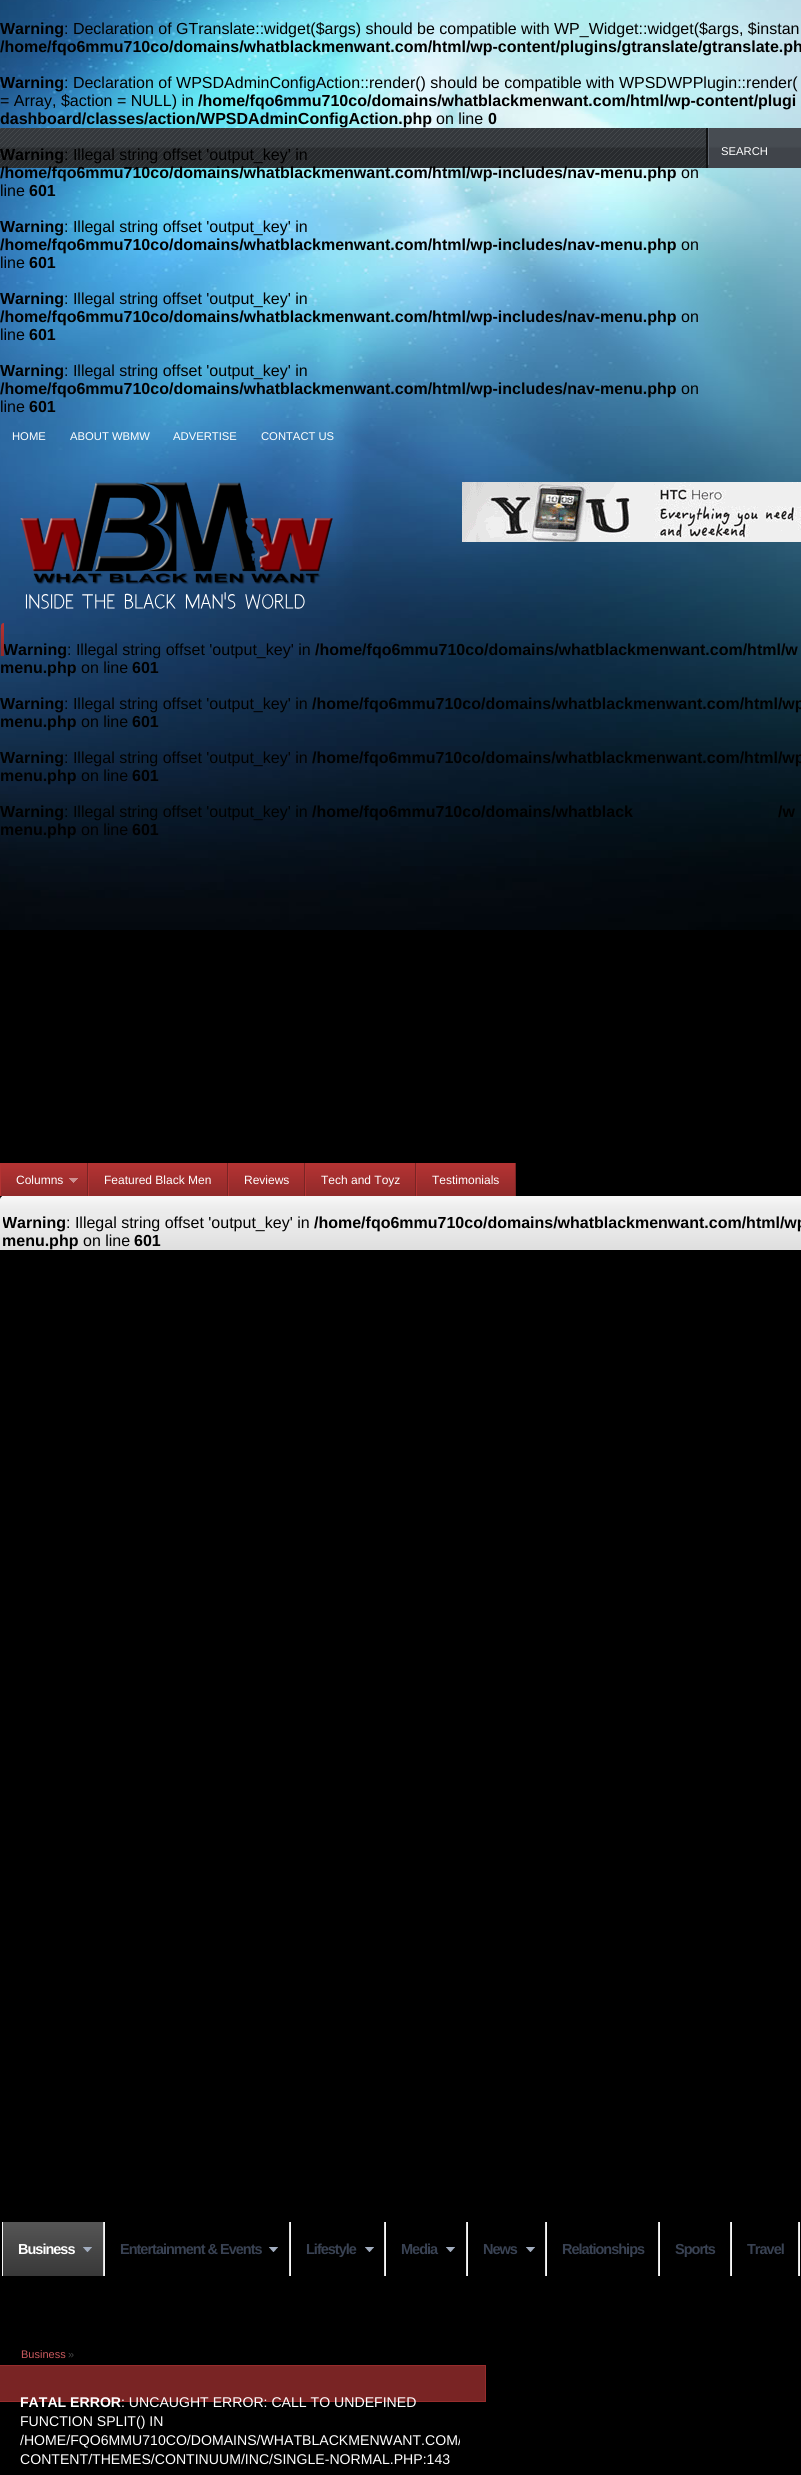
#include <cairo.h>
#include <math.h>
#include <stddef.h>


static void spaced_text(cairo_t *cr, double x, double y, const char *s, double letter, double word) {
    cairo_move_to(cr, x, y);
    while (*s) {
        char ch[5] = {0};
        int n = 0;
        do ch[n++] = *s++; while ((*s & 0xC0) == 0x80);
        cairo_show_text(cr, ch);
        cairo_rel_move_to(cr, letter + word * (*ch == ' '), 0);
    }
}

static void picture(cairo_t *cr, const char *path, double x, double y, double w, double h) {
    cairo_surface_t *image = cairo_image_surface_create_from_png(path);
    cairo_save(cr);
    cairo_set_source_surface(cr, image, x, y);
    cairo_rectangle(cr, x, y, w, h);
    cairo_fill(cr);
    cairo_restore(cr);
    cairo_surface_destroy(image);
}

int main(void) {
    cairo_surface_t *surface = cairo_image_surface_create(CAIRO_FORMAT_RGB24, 801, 2475);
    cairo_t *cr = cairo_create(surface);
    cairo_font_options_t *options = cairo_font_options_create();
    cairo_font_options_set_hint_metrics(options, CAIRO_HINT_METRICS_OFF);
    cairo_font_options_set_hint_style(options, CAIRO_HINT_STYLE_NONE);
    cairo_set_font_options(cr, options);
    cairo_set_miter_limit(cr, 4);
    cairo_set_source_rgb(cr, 0, 0, 0);
    cairo_paint(cr);
    picture(cr, "img1.png", 0, 0, 801, 930);
    cairo_select_font_face(cr, "Liberation Sans", CAIRO_FONT_SLANT_NORMAL, CAIRO_FONT_WEIGHT_BOLD);
    cairo_set_font_size(cr, 16);
    cairo_set_source_rgb(cr, 0, 0, 0);
    cairo_move_to(cr, 0, 34);
    cairo_show_text(cr, "Warning");
    cairo_select_font_face(cr, "Liberation Sans", CAIRO_FONT_SLANT_NORMAL, CAIRO_FONT_WEIGHT_NORMAL);
    cairo_move_to(cr, 64, 34);
    cairo_show_text(cr, ": Declaration of GTranslate::widget($args) should be compatible with WP_Widget::widget($args, $instan");
    cairo_select_font_face(cr, "Liberation Sans", CAIRO_FONT_SLANT_NORMAL, CAIRO_FONT_WEIGHT_BOLD);
    cairo_move_to(cr, 0, 52);
    cairo_show_text(cr, "/home/fqo6mmu710co/domains/whatblackmenwant.com/html/wp-content/plugins/gtranslate/gtranslate.ph");
    cairo_move_to(cr, 0, 88);
    cairo_show_text(cr, "Warning");
    cairo_select_font_face(cr, "Liberation Sans", CAIRO_FONT_SLANT_NORMAL, CAIRO_FONT_WEIGHT_NORMAL);
    cairo_move_to(cr, 64, 88);
    cairo_show_text(cr, ": Declaration of WPSDAdminConfigAction::render() should be compatible with WPSDWPPlugin::render(");
    cairo_move_to(cr, 0, 106);
    cairo_show_text(cr, "= Array, $action = NULL) in");
    cairo_select_font_face(cr, "Liberation Sans", CAIRO_FONT_SLANT_NORMAL, CAIRO_FONT_WEIGHT_BOLD);
    cairo_move_to(cr, 198, 106);
    cairo_show_text(cr, "/home/fqo6mmu710co/domains/whatblackmenwant.com/html/wp-content/plugi");
    cairo_move_to(cr, 0, 124);
    cairo_show_text(cr, "dashboard/classes/action/WPSDAdminConfigAction.php");
    cairo_select_font_face(cr, "Liberation Sans", CAIRO_FONT_SLANT_NORMAL, CAIRO_FONT_WEIGHT_NORMAL);
    cairo_move_to(cr, 436, 124);
    cairo_show_text(cr, "on line");
    cairo_select_font_face(cr, "Liberation Sans", CAIRO_FONT_SLANT_NORMAL, CAIRO_FONT_WEIGHT_BOLD);
    cairo_move_to(cr, 488, 124);
    cairo_show_text(cr, "0");
    picture(cr, "img2.png", 0, 128, 706, 40);
    cairo_move_to(cr, 0, 160);
    cairo_show_text(cr, "Warning");
    cairo_select_font_face(cr, "Liberation Sans", CAIRO_FONT_SLANT_NORMAL, CAIRO_FONT_WEIGHT_NORMAL);
    cairo_move_to(cr, 64, 160);
    cairo_show_text(cr, ": Illegal string offset 'output_key' in");
    cairo_select_font_face(cr, "Liberation Sans", CAIRO_FONT_SLANT_NORMAL, CAIRO_FONT_WEIGHT_BOLD);
    cairo_move_to(cr, 0, 178);
    cairo_show_text(cr, "/home/fqo6mmu710co/domains/whatblackmenwant.com/html/wp-includes/nav-menu.php");
    cairo_select_font_face(cr, "Liberation Sans", CAIRO_FONT_SLANT_NORMAL, CAIRO_FONT_WEIGHT_NORMAL);
    cairo_move_to(cr, 681, 178);
    cairo_show_text(cr, "on");
    cairo_move_to(cr, 0, 196);
    cairo_show_text(cr, "line");
    cairo_select_font_face(cr, "Liberation Sans", CAIRO_FONT_SLANT_NORMAL, CAIRO_FONT_WEIGHT_BOLD);
    cairo_move_to(cr, 29, 196);
    cairo_show_text(cr, "601");
    cairo_move_to(cr, 0, 232);
    cairo_show_text(cr, "Warning");
    cairo_select_font_face(cr, "Liberation Sans", CAIRO_FONT_SLANT_NORMAL, CAIRO_FONT_WEIGHT_NORMAL);
    cairo_move_to(cr, 64, 232);
    cairo_show_text(cr, ": Illegal string offset 'output_key' in");
    cairo_select_font_face(cr, "Liberation Sans", CAIRO_FONT_SLANT_NORMAL, CAIRO_FONT_WEIGHT_BOLD);
    cairo_move_to(cr, 0, 250);
    cairo_show_text(cr, "/home/fqo6mmu710co/domains/whatblackmenwant.com/html/wp-includes/nav-menu.php");
    cairo_select_font_face(cr, "Liberation Sans", CAIRO_FONT_SLANT_NORMAL, CAIRO_FONT_WEIGHT_NORMAL);
    cairo_move_to(cr, 681, 250);
    cairo_show_text(cr, "on");
    cairo_move_to(cr, 0, 268);
    cairo_show_text(cr, "line");
    cairo_select_font_face(cr, "Liberation Sans", CAIRO_FONT_SLANT_NORMAL, CAIRO_FONT_WEIGHT_BOLD);
    cairo_move_to(cr, 29, 268);
    cairo_show_text(cr, "601");
    cairo_move_to(cr, 0, 304);
    cairo_show_text(cr, "Warning");
    cairo_select_font_face(cr, "Liberation Sans", CAIRO_FONT_SLANT_NORMAL, CAIRO_FONT_WEIGHT_NORMAL);
    cairo_move_to(cr, 64, 304);
    cairo_show_text(cr, ": Illegal string offset 'output_key' in");
    cairo_select_font_face(cr, "Liberation Sans", CAIRO_FONT_SLANT_NORMAL, CAIRO_FONT_WEIGHT_BOLD);
    cairo_move_to(cr, 0, 322);
    cairo_show_text(cr, "/home/fqo6mmu710co/domains/whatblackmenwant.com/html/wp-includes/nav-menu.php");
    cairo_select_font_face(cr, "Liberation Sans", CAIRO_FONT_SLANT_NORMAL, CAIRO_FONT_WEIGHT_NORMAL);
    cairo_move_to(cr, 681, 322);
    cairo_show_text(cr, "on");
    cairo_move_to(cr, 0, 340);
    cairo_show_text(cr, "line");
    cairo_select_font_face(cr, "Liberation Sans", CAIRO_FONT_SLANT_NORMAL, CAIRO_FONT_WEIGHT_BOLD);
    cairo_move_to(cr, 29, 340);
    cairo_show_text(cr, "601");
    cairo_move_to(cr, 0, 376);
    cairo_show_text(cr, "Warning");
    cairo_select_font_face(cr, "Liberation Sans", CAIRO_FONT_SLANT_NORMAL, CAIRO_FONT_WEIGHT_NORMAL);
    cairo_move_to(cr, 64, 376);
    cairo_show_text(cr, ": Illegal string offset 'output_key' in");
    cairo_select_font_face(cr, "Liberation Sans", CAIRO_FONT_SLANT_NORMAL, CAIRO_FONT_WEIGHT_BOLD);
    cairo_move_to(cr, 0, 394);
    cairo_show_text(cr, "/home/fqo6mmu710co/domains/whatblackmenwant.com/html/wp-includes/nav-menu.php");
    cairo_select_font_face(cr, "Liberation Sans", CAIRO_FONT_SLANT_NORMAL, CAIRO_FONT_WEIGHT_NORMAL);
    cairo_move_to(cr, 681, 394);
    cairo_show_text(cr, "on");
    cairo_move_to(cr, 0, 412);
    cairo_show_text(cr, "line");
    cairo_select_font_face(cr, "Liberation Sans", CAIRO_FONT_SLANT_NORMAL, CAIRO_FONT_WEIGHT_BOLD);
    cairo_move_to(cr, 29, 412);
    cairo_show_text(cr, "601");
    cairo_select_font_face(cr, "Liberation Sans", CAIRO_FONT_SLANT_NORMAL, CAIRO_FONT_WEIGHT_NORMAL);
    cairo_set_font_size(cr, 11.25);
    cairo_set_source_rgb(cr, 1, 1, 1);
    cairo_move_to(cr, 12, 440);
    cairo_show_text(cr, "HOME");
    cairo_move_to(cr, 70, 440);
    cairo_show_text(cr, "ABOUT WBMW");
    cairo_move_to(cr, 173, 440);
    cairo_show_text(cr, "ADVERTISE");
    cairo_move_to(cr, 261, 440);
    cairo_show_text(cr, "CONTACT US");
    picture(cr, "img3.png", 708, 128, 93, 40);
    cairo_set_source_rgb(cr, 0.063, 0.067, 0.071);
    cairo_rectangle(cr, 706, 128, 2, 40);
    cairo_fill(cr);
    cairo_set_source_rgb(cr, 0.373, 0.396, 0.431);
    cairo_rectangle(cr, 708, 128, 1, 37);
    cairo_fill(cr);
    cairo_set_source_rgb(cr, 1, 1, 1);
    cairo_move_to(cr, 721, 155);
    cairo_show_text(cr, "SEARCH");
    picture(cr, "img4.png", 20, 482, 313, 103);
    picture(cr, "img5.png", 25, 594, 49, 15);
    picture(cr, "img6.png", 82, 594, 33, 15);
    picture(cr, "img7.png", 124, 593, 52, 16);
    picture(cr, "img8.png", 185, 592, 51, 17);
    picture(cr, "img9.png", 245, 594, 60, 15);
    picture(cr, "img10.png", 462, 482, 339, 60);
    cairo_select_font_face(cr, "Liberation Sans", CAIRO_FONT_SLANT_NORMAL, CAIRO_FONT_WEIGHT_BOLD);
    cairo_set_font_size(cr, 16);
    cairo_set_source_rgb(cr, 0, 0, 0);
    cairo_move_to(cr, 3, 655);
    cairo_show_text(cr, "Warning");
    picture(cr, "img11.png", 0, 623, 4, 33);
    cairo_select_font_face(cr, "Liberation Sans", CAIRO_FONT_SLANT_NORMAL, CAIRO_FONT_WEIGHT_NORMAL);
    cairo_move_to(cr, 67, 655);
    cairo_show_text(cr, ": Illegal string offset 'output_key' in");
    cairo_select_font_face(cr, "Liberation Sans", CAIRO_FONT_SLANT_NORMAL, CAIRO_FONT_WEIGHT_BOLD);
    cairo_move_to(cr, 315, 655);
    cairo_show_text(cr, "/home/fqo6mmu710co/domains/whatblackmenwant.com/html/w");
    cairo_move_to(cr, 0, 673);
    cairo_show_text(cr, "menu.php");
    cairo_select_font_face(cr, "Liberation Sans", CAIRO_FONT_SLANT_NORMAL, CAIRO_FONT_WEIGHT_NORMAL);
    cairo_move_to(cr, 81, 673);
    cairo_show_text(cr, "on line");
    cairo_select_font_face(cr, "Liberation Sans", CAIRO_FONT_SLANT_NORMAL, CAIRO_FONT_WEIGHT_BOLD);
    cairo_move_to(cr, 132, 673);
    cairo_show_text(cr, "601");
    cairo_move_to(cr, 0, 709);
    cairo_show_text(cr, "Warning");
    cairo_select_font_face(cr, "Liberation Sans", CAIRO_FONT_SLANT_NORMAL, CAIRO_FONT_WEIGHT_NORMAL);
    cairo_move_to(cr, 64, 709);
    cairo_show_text(cr, ": Illegal string offset 'output_key' in");
    cairo_select_font_face(cr, "Liberation Sans", CAIRO_FONT_SLANT_NORMAL, CAIRO_FONT_WEIGHT_BOLD);
    cairo_move_to(cr, 312, 709);
    cairo_show_text(cr, "/home/fqo6mmu710co/domains/whatblackmenwant.com/html/wp");
    cairo_move_to(cr, 0, 727);
    cairo_show_text(cr, "menu.php");
    cairo_select_font_face(cr, "Liberation Sans", CAIRO_FONT_SLANT_NORMAL, CAIRO_FONT_WEIGHT_NORMAL);
    cairo_move_to(cr, 81, 727);
    cairo_show_text(cr, "on line");
    cairo_select_font_face(cr, "Liberation Sans", CAIRO_FONT_SLANT_NORMAL, CAIRO_FONT_WEIGHT_BOLD);
    cairo_move_to(cr, 132, 727);
    cairo_show_text(cr, "601");
    cairo_move_to(cr, 0, 763);
    cairo_show_text(cr, "Warning");
    cairo_select_font_face(cr, "Liberation Sans", CAIRO_FONT_SLANT_NORMAL, CAIRO_FONT_WEIGHT_NORMAL);
    cairo_move_to(cr, 64, 763);
    cairo_show_text(cr, ": Illegal string offset 'output_key' in");
    cairo_select_font_face(cr, "Liberation Sans", CAIRO_FONT_SLANT_NORMAL, CAIRO_FONT_WEIGHT_BOLD);
    cairo_move_to(cr, 312, 763);
    cairo_show_text(cr, "/home/fqo6mmu710co/domains/whatblackmenwant.com/html/wp");
    cairo_move_to(cr, 0, 781);
    cairo_show_text(cr, "menu.php");
    cairo_select_font_face(cr, "Liberation Sans", CAIRO_FONT_SLANT_NORMAL, CAIRO_FONT_WEIGHT_NORMAL);
    cairo_move_to(cr, 81, 781);
    cairo_show_text(cr, "on line");
    cairo_select_font_face(cr, "Liberation Sans", CAIRO_FONT_SLANT_NORMAL, CAIRO_FONT_WEIGHT_BOLD);
    cairo_move_to(cr, 132, 781);
    cairo_show_text(cr, "601");
    cairo_move_to(cr, 0, 817);
    cairo_show_text(cr, "Warning");
    cairo_select_font_face(cr, "Liberation Sans", CAIRO_FONT_SLANT_NORMAL, CAIRO_FONT_WEIGHT_NORMAL);
    cairo_move_to(cr, 64, 817);
    cairo_show_text(cr, ": Illegal string offset 'output_key' in");
    cairo_select_font_face(cr, "Liberation Sans", CAIRO_FONT_SLANT_NORMAL, CAIRO_FONT_WEIGHT_BOLD);
    cairo_move_to(cr, 312, 817);
    cairo_show_text(cr, "/home/fqo6mmu710co/domains/whatblack");
    cairo_move_to(cr, 778, 817);
    cairo_show_text(cr, "/w");
    cairo_move_to(cr, 0, 835);
    cairo_show_text(cr, "menu.php");
    cairo_select_font_face(cr, "Liberation Sans", CAIRO_FONT_SLANT_NORMAL, CAIRO_FONT_WEIGHT_NORMAL);
    cairo_move_to(cr, 81, 835);
    cairo_show_text(cr, "on line");
    cairo_select_font_face(cr, "Liberation Sans", CAIRO_FONT_SLANT_NORMAL, CAIRO_FONT_WEIGHT_BOLD);
    cairo_move_to(cr, 132, 835);
    cairo_show_text(cr, "601");
    picture(cr, "img12.png", 1, 1163, 514, 33);
    cairo_set_source_rgb(cr, 0.475, 0.141, 0.141);
    cairo_rectangle(cr, 87, 1163, 1, 33);
    cairo_fill(cr);
    cairo_set_source_rgb(cr, 0.71, 0.2, 0.2);
    cairo_rectangle(cr, 0, 1163, 1, 33);
    cairo_fill(cr);
    cairo_select_font_face(cr, "Liberation Sans", CAIRO_FONT_SLANT_NORMAL, CAIRO_FONT_WEIGHT_NORMAL);
    cairo_set_font_size(cr, 12);
    cairo_set_source_rgb(cr, 1, 1, 1);
    cairo_move_to(cr, 16, 1184);
    cairo_show_text(cr, "Columns");
    picture(cr, "img13.png", 69, 1178, 9, 5);
    cairo_set_source_rgb(cr, 0.475, 0.141, 0.141);
    cairo_rectangle(cr, 227, 1163, 1, 33);
    cairo_fill(cr);
    cairo_set_source_rgb(cr, 0.71, 0.2, 0.2);
    cairo_rectangle(cr, 88, 1163, 1, 33);
    cairo_fill(cr);
    cairo_set_source_rgb(cr, 1, 1, 1);
    cairo_move_to(cr, 104, 1184);
    cairo_show_text(cr, "Featured Black Men");
    cairo_set_source_rgb(cr, 0.475, 0.141, 0.141);
    cairo_rectangle(cr, 304, 1163, 1, 33);
    cairo_fill(cr);
    cairo_set_source_rgb(cr, 0.71, 0.2, 0.2);
    cairo_rectangle(cr, 228, 1163, 1, 33);
    cairo_fill(cr);
    cairo_set_source_rgb(cr, 1, 1, 1);
    cairo_move_to(cr, 244, 1184);
    cairo_show_text(cr, "Reviews");
    cairo_set_source_rgb(cr, 0.475, 0.141, 0.141);
    cairo_rectangle(cr, 415, 1163, 1, 33);
    cairo_fill(cr);
    cairo_set_source_rgb(cr, 0.71, 0.2, 0.2);
    cairo_rectangle(cr, 305, 1163, 1, 33);
    cairo_fill(cr);
    cairo_set_source_rgb(cr, 1, 1, 1);
    cairo_move_to(cr, 321, 1184);
    cairo_show_text(cr, "Tech and Toyz");
    cairo_set_source_rgb(cr, 0.475, 0.141, 0.141);
    cairo_rectangle(cr, 515, 1163, 1, 33);
    cairo_fill(cr);
    cairo_set_source_rgb(cr, 0.71, 0.2, 0.2);
    cairo_rectangle(cr, 416, 1163, 1, 33);
    cairo_fill(cr);
    cairo_set_source_rgb(cr, 1, 1, 1);
    cairo_move_to(cr, 432, 1184);
    cairo_show_text(cr, "Testimonials");
    picture(cr, "img15.png", 2, 1196, 799, 54);
    cairo_select_font_face(cr, "Liberation Sans", CAIRO_FONT_SLANT_NORMAL, CAIRO_FONT_WEIGHT_BOLD);
    cairo_set_font_size(cr, 16);
    cairo_set_source_rgb(cr, 0, 0, 0);
    cairo_move_to(cr, 2, 1228);
    cairo_show_text(cr, "Warning");
    picture(cr, "img14.png", 0, 1196, 3, 54);
    cairo_select_font_face(cr, "Liberation Sans", CAIRO_FONT_SLANT_NORMAL, CAIRO_FONT_WEIGHT_NORMAL);
    cairo_move_to(cr, 66, 1228);
    cairo_show_text(cr, ": Illegal string offset 'output_key' in");
    cairo_select_font_face(cr, "Liberation Sans", CAIRO_FONT_SLANT_NORMAL, CAIRO_FONT_WEIGHT_BOLD);
    cairo_move_to(cr, 314, 1228);
    cairo_show_text(cr, "/home/fqo6mmu710co/domains/whatblackmenwant.com/html/wp");
    cairo_move_to(cr, 2, 1246);
    cairo_show_text(cr, "menu.php");
    cairo_select_font_face(cr, "Liberation Sans", CAIRO_FONT_SLANT_NORMAL, CAIRO_FONT_WEIGHT_NORMAL);
    cairo_move_to(cr, 83, 1246);
    cairo_show_text(cr, "on line");
    cairo_select_font_face(cr, "Liberation Sans", CAIRO_FONT_SLANT_NORMAL, CAIRO_FONT_WEIGHT_BOLD);
    cairo_move_to(cr, 134, 1246);
    cairo_show_text(cr, "601");
    picture(cr, "img16.png", 3, 2222, 100, 54);
    cairo_set_source_rgb(cr, 0.863, 0.863, 0.863);
    cairo_rectangle(cr, 103, 2222, 1, 54);
    cairo_fill(cr);
    cairo_set_source_rgb(cr, 0.969, 0.969, 0.969);
    cairo_rectangle(cr, 2, 2222, 1, 54);
    cairo_fill(cr);
    cairo_set_font_size(cr, 14.5);
    cairo_set_source_rgb(cr, 1, 1, 1);
    spaced_text(cr, 18, 2254, "Business", -1, 0);
    picture(cr, "img17.png", 83, 2247, 9, 5);
    cairo_set_source_rgb(cr, 0.863, 0.863, 0.863);
    cairo_rectangle(cr, 289, 2222, 1, 54);
    cairo_fill(cr);
    cairo_set_source_rgb(cr, 0.969, 0.969, 0.969);
    cairo_rectangle(cr, 104, 2222, 1, 54);
    cairo_fill(cr);
    cairo_set_source_rgb(cr, 0.224, 0.259, 0.325);
    spaced_text(cr, 120, 2254, "Entertainment & Events", -1, 0);
    picture(cr, "img18.png", 269, 2247, 9, 5);
    cairo_set_source_rgb(cr, 0.863, 0.863, 0.863);
    cairo_rectangle(cr, 384, 2222, 1, 54);
    cairo_fill(cr);
    cairo_set_source_rgb(cr, 0.969, 0.969, 0.969);
    cairo_rectangle(cr, 290, 2222, 1, 54);
    cairo_fill(cr);
    cairo_set_source_rgb(cr, 0.224, 0.259, 0.325);
    spaced_text(cr, 306, 2254, "Lifestyle", -1, 0);
    picture(cr, "img18.png", 365, 2247, 9, 5);
    cairo_set_source_rgb(cr, 0.863, 0.863, 0.863);
    cairo_rectangle(cr, 466, 2222, 1, 54);
    cairo_fill(cr);
    cairo_set_source_rgb(cr, 0.969, 0.969, 0.969);
    cairo_rectangle(cr, 385, 2222, 1, 54);
    cairo_fill(cr);
    cairo_set_source_rgb(cr, 0.224, 0.259, 0.325);
    spaced_text(cr, 401, 2254, "Media", -1, 0);
    picture(cr, "img18.png", 446, 2247, 9, 5);
    cairo_set_source_rgb(cr, 0.863, 0.863, 0.863);
    cairo_rectangle(cr, 545, 2222, 1, 54);
    cairo_fill(cr);
    cairo_set_source_rgb(cr, 0.969, 0.969, 0.969);
    cairo_rectangle(cr, 467, 2222, 1, 54);
    cairo_fill(cr);
    cairo_set_source_rgb(cr, 0.224, 0.259, 0.325);
    spaced_text(cr, 483, 2254, "News", -1, 0);
    picture(cr, "img18.png", 526, 2247, 9, 5);
    cairo_set_source_rgb(cr, 0.863, 0.863, 0.863);
    cairo_rectangle(cr, 658, 2222, 1, 54);
    cairo_fill(cr);
    cairo_set_source_rgb(cr, 0.969, 0.969, 0.969);
    cairo_rectangle(cr, 546, 2222, 1, 54);
    cairo_fill(cr);
    cairo_set_source_rgb(cr, 0.224, 0.259, 0.325);
    spaced_text(cr, 562, 2254, "Relationships", -1, 0);
    cairo_set_source_rgb(cr, 0.863, 0.863, 0.863);
    cairo_rectangle(cr, 730, 2222, 1, 54);
    cairo_fill(cr);
    cairo_set_source_rgb(cr, 0.969, 0.969, 0.969);
    cairo_rectangle(cr, 659, 2222, 1, 54);
    cairo_fill(cr);
    cairo_set_source_rgb(cr, 0.224, 0.259, 0.325);
    spaced_text(cr, 675, 2254, "Sports", -1, 0);
    cairo_set_source_rgb(cr, 0.863, 0.863, 0.863);
    cairo_rectangle(cr, 798, 2222, 1, 54);
    cairo_fill(cr);
    cairo_set_source_rgb(cr, 0.969, 0.969, 0.969);
    cairo_rectangle(cr, 731, 2222, 1, 54);
    cairo_fill(cr);
    cairo_set_source_rgb(cr, 0.224, 0.259, 0.325);
    spaced_text(cr, 747, 2254, "Travel", -1, 0);
    cairo_set_source_rgb(cr, 0.969, 0.969, 0.969);
    cairo_rectangle(cr, 799, 2222, 1, 54);
    cairo_fill(cr);
    cairo_select_font_face(cr, "Liberation Sans", CAIRO_FONT_SLANT_NORMAL, CAIRO_FONT_WEIGHT_NORMAL);
    cairo_set_font_size(cr, 11);
    cairo_set_source_rgb(cr, 0.796, 0.353, 0.373);
    cairo_move_to(cr, 21, 2358);
    cairo_show_text(cr, "Business");
    cairo_set_source_rgb(cr, 0.267, 0.267, 0.267);
    cairo_move_to(cr, 68, 2358);
    cairo_show_text(cr, "»");
    cairo_set_source_rgb(cr, 0.475, 0.141, 0.141);
    cairo_rectangle(cr, -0.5, 2365.5, 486, 36);
    cairo_fill_preserve(cr);
    cairo_set_source_rgb(cr, 0.592, 0.173, 0.173);
    cairo_set_line_width(cr, 1);
    cairo_stroke(cr);
    cairo_select_font_face(cr, "Liberation Sans", CAIRO_FONT_SLANT_NORMAL, CAIRO_FONT_WEIGHT_BOLD);
    cairo_set_font_size(cr, 14.1);
    cairo_set_source_rgb(cr, 1, 1, 1);
    cairo_move_to(cr, 20, 2407);
    cairo_show_text(cr, "FATAL ERROR");
    cairo_select_font_face(cr, "Liberation Sans", CAIRO_FONT_SLANT_NORMAL, CAIRO_FONT_WEIGHT_NORMAL);
    cairo_move_to(cr, 121, 2407);
    cairo_show_text(cr, ": UNCAUGHT ERROR: CALL TO UNDEFINED");
    cairo_move_to(cr, 20, 2426);
    cairo_show_text(cr, "FUNCTION SPLIT() IN");
    cairo_save(cr);
    cairo_rectangle(cr, 20, 2374, 440, 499);
    cairo_clip(cr);
    cairo_move_to(cr, 20, 2445);
    cairo_show_text(cr, "/HOME/FQO6MMU710CO/DOMAINS/WHATBLACKMENWANT.COM/");
    cairo_restore(cr);
    cairo_move_to(cr, 20, 2464);
    cairo_show_text(cr, "CONTENT/THEMES/CONTINUUM/INC/SINGLE-NORMAL.PHP:143");
    cairo_surface_write_to_png(surface, "page.png");
    cairo_font_options_destroy(options);
    cairo_destroy(cr);
    cairo_surface_destroy(surface);
    return 0;
}
